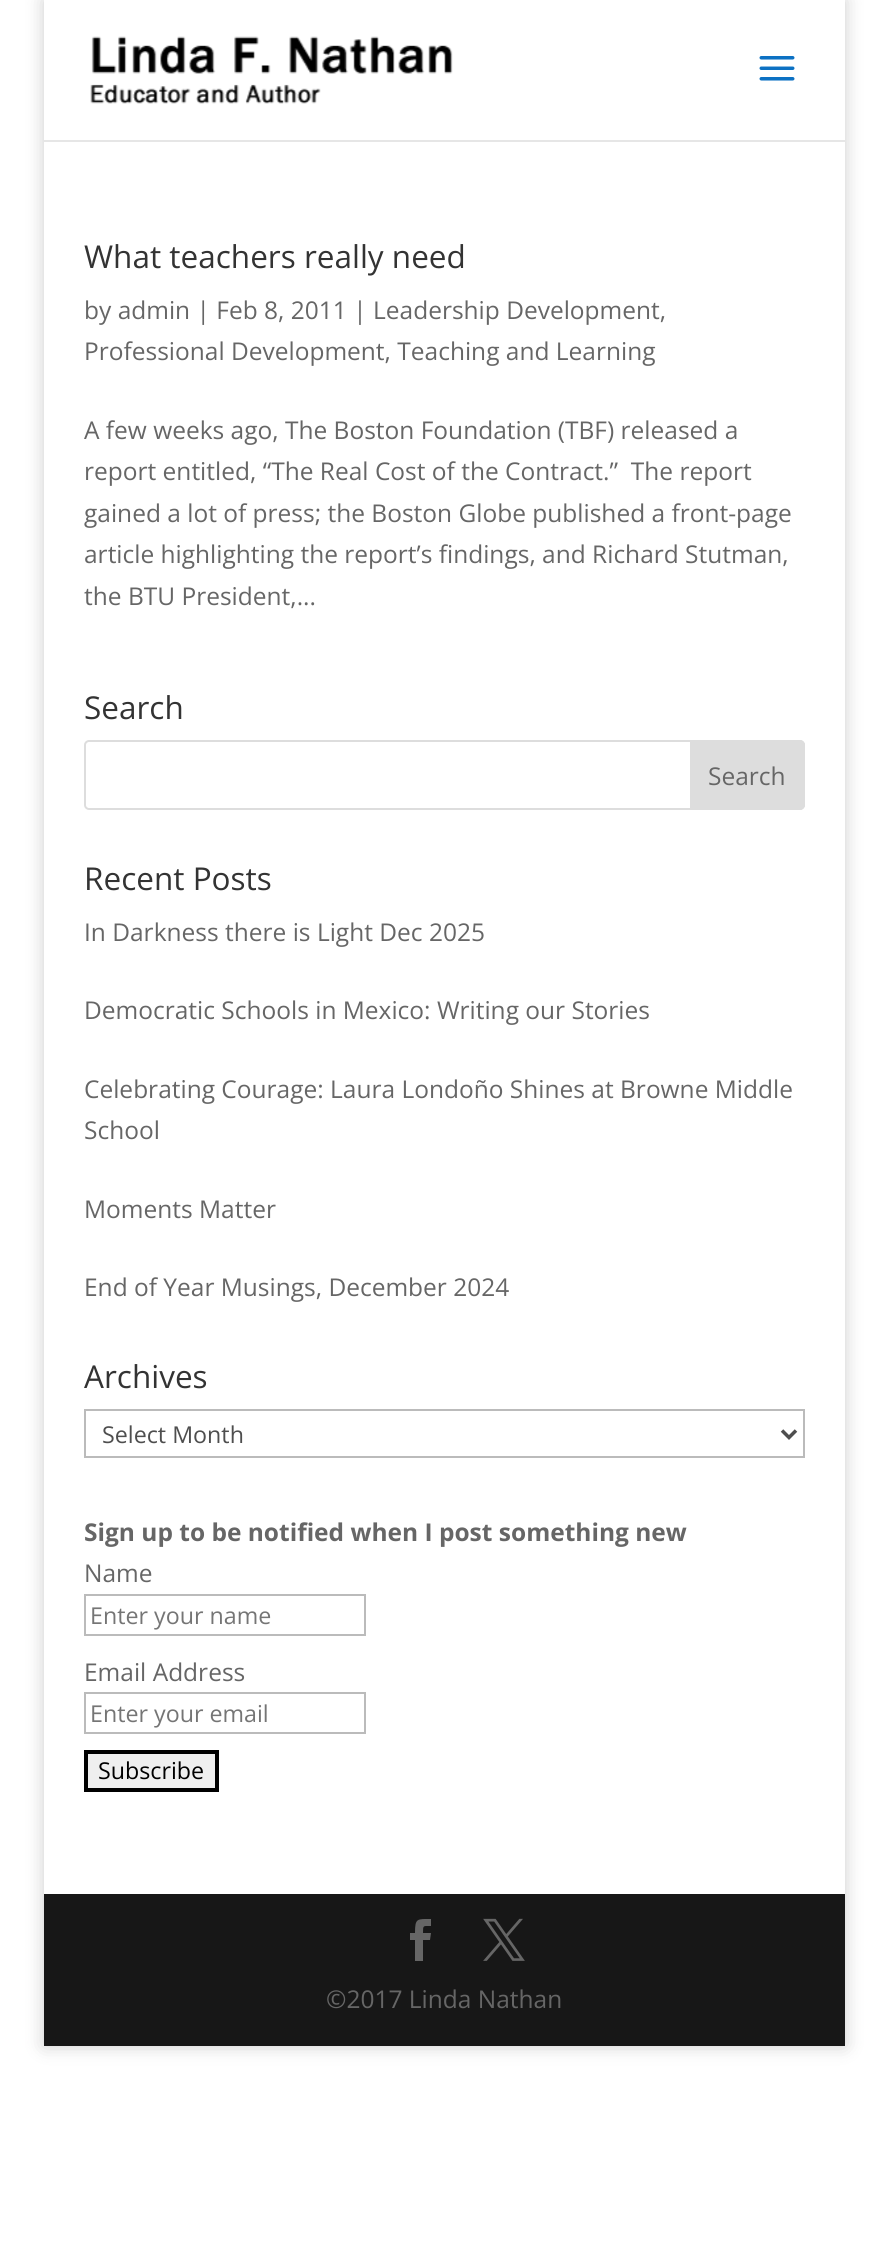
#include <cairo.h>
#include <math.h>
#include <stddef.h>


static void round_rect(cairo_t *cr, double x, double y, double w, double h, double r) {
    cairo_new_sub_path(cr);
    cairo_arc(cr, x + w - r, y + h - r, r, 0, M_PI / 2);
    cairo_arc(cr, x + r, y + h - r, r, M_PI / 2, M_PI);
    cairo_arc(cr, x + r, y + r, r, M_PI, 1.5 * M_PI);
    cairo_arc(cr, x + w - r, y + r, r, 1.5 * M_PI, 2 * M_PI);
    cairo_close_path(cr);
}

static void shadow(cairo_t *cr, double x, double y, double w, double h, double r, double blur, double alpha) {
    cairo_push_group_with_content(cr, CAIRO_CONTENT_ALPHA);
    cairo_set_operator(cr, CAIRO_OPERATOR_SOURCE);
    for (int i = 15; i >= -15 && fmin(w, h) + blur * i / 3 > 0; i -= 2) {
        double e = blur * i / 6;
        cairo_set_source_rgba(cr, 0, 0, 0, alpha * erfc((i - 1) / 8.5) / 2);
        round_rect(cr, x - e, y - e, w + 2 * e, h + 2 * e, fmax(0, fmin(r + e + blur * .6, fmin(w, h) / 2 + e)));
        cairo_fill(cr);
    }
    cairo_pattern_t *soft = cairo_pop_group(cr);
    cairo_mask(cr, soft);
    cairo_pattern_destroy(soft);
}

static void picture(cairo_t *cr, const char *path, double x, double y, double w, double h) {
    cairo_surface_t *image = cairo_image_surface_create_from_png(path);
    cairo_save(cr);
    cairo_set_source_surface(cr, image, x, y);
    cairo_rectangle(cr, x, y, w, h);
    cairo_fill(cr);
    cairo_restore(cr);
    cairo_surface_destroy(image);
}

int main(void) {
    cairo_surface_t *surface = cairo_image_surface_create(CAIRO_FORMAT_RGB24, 888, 2262);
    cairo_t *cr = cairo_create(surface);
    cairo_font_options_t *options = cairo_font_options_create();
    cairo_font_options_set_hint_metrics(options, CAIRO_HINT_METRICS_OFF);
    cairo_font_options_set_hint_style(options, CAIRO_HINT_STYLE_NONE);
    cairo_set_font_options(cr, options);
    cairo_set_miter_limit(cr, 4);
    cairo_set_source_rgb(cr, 1, 1, 1);
    cairo_paint(cr);
    cairo_save(cr);
    cairo_set_fill_rule(cr, CAIRO_FILL_RULE_EVEN_ODD);
    cairo_new_path(cr);
    cairo_move_to(cr, 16, 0);
    cairo_line_to(cr, 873, 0);
    cairo_line_to(cr, 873, 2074);
    cairo_line_to(cr, 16, 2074);
    cairo_close_path(cr);
    cairo_move_to(cr, 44, 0);
    cairo_line_to(cr, 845, 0);
    cairo_line_to(cr, 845, 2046);
    cairo_line_to(cr, 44, 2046);
    cairo_close_path(cr);
    cairo_clip(cr);
    cairo_set_source_rgb(cr, 0, 0, 0);
    shadow(cr, 44, 0, 801, 2046, 0, 9, 0.2);
    cairo_restore(cr);
    cairo_set_source_rgb(cr, 0.902, 0.902, 0.902);
    cairo_rectangle(cr, 44, 140, 801, 2);
    cairo_fill(cr);
    picture(cr, "img1.png", 90, 36, 363, 68);
    picture(cr, "img2.png", 759, 56, 36, 25);
    cairo_select_font_face(cr, "Open Sans", CAIRO_FONT_SLANT_NORMAL, CAIRO_FONT_WEIGHT_NORMAL);
    cairo_set_font_size(cr, 31.5);
    cairo_set_source_rgb(cr, 0.2, 0.2, 0.2);
    cairo_move_to(cr, 84, 268);
    cairo_show_text(cr, "What teachers really need");
    cairo_set_font_size(cr, 24.5);
    cairo_set_source_rgb(cr, 0.4, 0.4, 0.4);
    cairo_move_to(cr, 84, 319);
    cairo_show_text(cr, "by admin | Feb 8, 2011 | Leadership Development,");
    cairo_move_to(cr, 84, 360);
    cairo_show_text(cr, "Professional Development, Teaching and Learning");
    cairo_move_to(cr, 84, 439);
    cairo_show_text(cr, "A few weeks ago, The Boston Foundation (TBF) released a");
    cairo_move_to(cr, 84, 480);
    cairo_show_text(cr, "report entitled, “The Real Cost of the Contract.”  The report");
    cairo_move_to(cr, 84, 522);
    cairo_show_text(cr, "gained a lot of press; the Boston Globe published a front-page");
    cairo_move_to(cr, 84, 563);
    cairo_show_text(cr, "article highlighting the report’s findings, and Richard Stutman,");
    cairo_move_to(cr, 84, 605);
    cairo_show_text(cr, "the BTU President,...");
    cairo_set_font_size(cr, 31.5);
    cairo_set_source_rgb(cr, 0.2, 0.2, 0.2);
    cairo_move_to(cr, 84, 719);
    cairo_show_text(cr, "Search");
    round_rect(cr, 85, 741, 719, 68, 4);
    cairo_set_source_rgb(cr, 0.867, 0.867, 0.867);
    cairo_stroke(cr);
    cairo_new_path(cr);
    cairo_move_to(cr, 691, 741);
    cairo_line_to(cr, 800, 741);
    cairo_curve_to(cr, 802, 741, 804, 743, 804, 745);
    cairo_line_to(cr, 804, 805);
    cairo_curve_to(cr, 804, 807, 802, 809, 800, 809);
    cairo_line_to(cr, 691, 809);
    cairo_close_path(cr);
    cairo_fill_preserve(cr);
    cairo_stroke(cr);
    cairo_set_font_size(cr, 24.5);
    cairo_set_source_rgb(cr, 0.4, 0.4, 0.4);
    cairo_move_to(cr, 708, 785);
    cairo_show_text(cr, "Search");
    cairo_set_font_size(cr, 31.5);
    cairo_set_source_rgb(cr, 0.2, 0.2, 0.2);
    cairo_move_to(cr, 84, 890);
    cairo_show_text(cr, "Recent Posts");
    cairo_set_font_size(cr, 24.5);
    cairo_set_source_rgb(cr, 0.4, 0.4, 0.4);
    cairo_move_to(cr, 84, 941);
    cairo_show_text(cr, "In Darkness there is Light Dec 2025");
    cairo_move_to(cr, 84, 1019);
    cairo_show_text(cr, "Democratic Schools in Mexico: Writing our Stories");
    cairo_move_to(cr, 84, 1098);
    cairo_show_text(cr, "Celebrating Courage: Laura Londoño Shines at Browne Middle");
    cairo_move_to(cr, 84, 1139);
    cairo_show_text(cr, "School");
    cairo_move_to(cr, 84, 1218);
    cairo_show_text(cr, "Moments Matter");
    cairo_move_to(cr, 84, 1296);
    cairo_show_text(cr, "End of Year Musings, December 2024");
    cairo_set_font_size(cr, 31.5);
    cairo_set_source_rgb(cr, 0.2, 0.2, 0.2);
    cairo_move_to(cr, 84, 1388);
    cairo_show_text(cr, "Archives");
    cairo_rectangle(cr, 85, 1410, 719, 47);
    cairo_set_source_rgb(cr, 0.733, 0.733, 0.733);
    cairo_stroke(cr);
    cairo_new_path(cr);
    cairo_move_to(cr, 782, 1430.5);
    cairo_line_to(cr, 789, 1437.5);
    cairo_line_to(cr, 796, 1430.5);
    cairo_set_source_rgb(cr, 0.306, 0.306, 0.306);
    cairo_set_line_width(cr, 3.5);
    cairo_stroke(cr);
    cairo_set_font_size(cr, 23.25);
    cairo_move_to(cr, 102, 1443);
    cairo_show_text(cr, "Select Month");
    cairo_select_font_face(cr, "Open Sans", CAIRO_FONT_SLANT_NORMAL, CAIRO_FONT_WEIGHT_BOLD);
    cairo_set_font_size(cr, 24.5);
    cairo_set_source_rgb(cr, 0.4, 0.4, 0.4);
    cairo_move_to(cr, 84, 1541);
    cairo_show_text(cr, "Sign up to be notified when I post something new");
    cairo_select_font_face(cr, "Open Sans", CAIRO_FONT_SLANT_NORMAL, CAIRO_FONT_WEIGHT_NORMAL);
    cairo_move_to(cr, 84, 1582);
    cairo_show_text(cr, "Name");
    cairo_rectangle(cr, 85, 1595, 280, 40);
    cairo_set_source_rgb(cr, 0.733, 0.733, 0.733);
    cairo_set_line_width(cr, 2);
    cairo_stroke(cr);
    cairo_set_font_size(cr, 23.25);
    cairo_set_source_rgb(cr, 0.459, 0.459, 0.459);
    cairo_move_to(cr, 90, 1624);
    cairo_show_text(cr, "Enter your name");
    cairo_set_font_size(cr, 24.5);
    cairo_set_source_rgb(cr, 0.4, 0.4, 0.4);
    cairo_move_to(cr, 84, 1681);
    cairo_show_text(cr, "Email Address");
    cairo_rectangle(cr, 85, 1693, 280, 40);
    cairo_set_source_rgb(cr, 0.733, 0.733, 0.733);
    cairo_stroke(cr);
    cairo_set_font_size(cr, 23.25);
    cairo_set_source_rgb(cr, 0.459, 0.459, 0.459);
    cairo_move_to(cr, 90, 1722);
    cairo_show_text(cr, "Enter your email");
    cairo_set_source_rgb(cr, 0.937, 0.937, 0.937);
    cairo_rectangle(cr, 86, 1752, 131, 38);
    cairo_fill_preserve(cr);
    cairo_set_source_rgb(cr, 0, 0, 0);
    cairo_set_line_width(cr, 4);
    cairo_stroke(cr);
    cairo_move_to(cr, 98, 1779);
    cairo_show_text(cr, "Subscribe");
    cairo_set_source_rgb(cr, 0.09, 0.09, 0.09);
    cairo_rectangle(cr, 44, 1894, 801, 152);
    cairo_fill(cr);
    cairo_set_source_rgb(cr, 0.4, 0.4, 0.4);
    cairo_new_path(cr);
    cairo_move_to(cr, 415, 1961);
    cairo_line_to(cr, 423, 1961);
    cairo_line_to(cr, 423, 1940);
    cairo_line_to(cr, 430, 1940);
    cairo_line_to(cr, 431, 1933);
    cairo_line_to(cr, 423, 1933);
    cairo_curve_to(cr, 423, 1925, 423, 1926, 431, 1926);
    cairo_line_to(cr, 431, 1919);
    cairo_curve_to(cr, 417, 1919, 415, 1918, 415, 1933);
    cairo_line_to(cr, 410, 1933);
    cairo_line_to(cr, 410, 1940);
    cairo_line_to(cr, 415, 1940);
    cairo_close_path(cr);
    cairo_fill(cr);
    picture(cr, "img3.png", 483, 1918, 42, 43);
    cairo_set_font_size(cr, 24.5);
    cairo_move_to(cr, 326, 2008);
    cairo_show_text(cr, "©2017 Linda Nathan");
    cairo_surface_write_to_png(surface, "page.png");
    cairo_font_options_destroy(options);
    cairo_destroy(cr);
    cairo_surface_destroy(surface);
    return 0;
}
